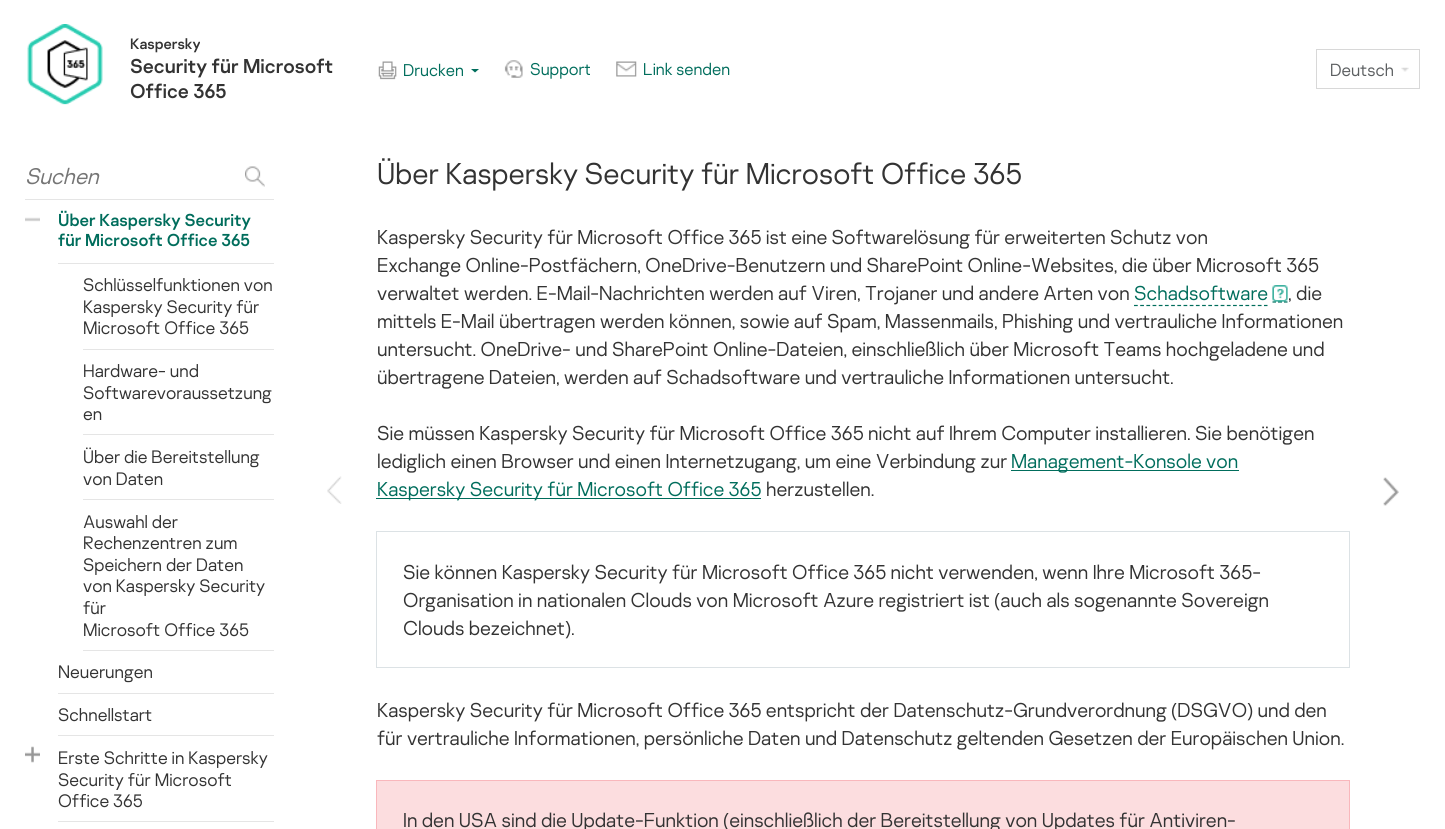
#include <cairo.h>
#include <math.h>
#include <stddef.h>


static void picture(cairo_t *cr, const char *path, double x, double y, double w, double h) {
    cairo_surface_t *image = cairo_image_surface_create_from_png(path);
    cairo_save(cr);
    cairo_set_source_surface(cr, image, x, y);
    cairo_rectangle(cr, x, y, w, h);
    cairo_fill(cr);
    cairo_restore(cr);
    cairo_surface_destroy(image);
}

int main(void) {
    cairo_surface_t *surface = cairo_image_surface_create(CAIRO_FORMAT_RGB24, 1445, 829);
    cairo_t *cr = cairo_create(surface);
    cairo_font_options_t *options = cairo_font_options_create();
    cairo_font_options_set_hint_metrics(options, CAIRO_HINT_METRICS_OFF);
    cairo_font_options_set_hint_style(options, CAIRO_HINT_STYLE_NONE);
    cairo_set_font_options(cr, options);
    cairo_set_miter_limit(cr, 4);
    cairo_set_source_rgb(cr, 1, 1, 1);
    cairo_paint(cr);
    picture(cr, "img1.png", 27, 24, 76, 81);
    cairo_select_font_face(cr, "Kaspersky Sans", CAIRO_FONT_SLANT_NORMAL, CAIRO_FONT_WEIGHT_NORMAL);
    cairo_set_font_size(cr, 15);
    cairo_set_source_rgb(cr, 0.2, 0.2, 0.2);
    cairo_move_to(cr, 130, 49);
    cairo_show_text(cr, "Kaspersky");
    cairo_set_font_size(cr, 20);
    cairo_move_to(cr, 130, 73);
    cairo_show_text(cr, "Security für Microsoft");
    cairo_move_to(cr, 130, 98);
    cairo_show_text(cr, "Office 365");
    picture(cr, "img2.png", 378, 61, 19, 19);
    cairo_select_font_face(cr, "Kaspersky Sans Light", CAIRO_FONT_SLANT_NORMAL, CAIRO_FONT_WEIGHT_NORMAL);
    cairo_set_font_size(cr, 17);
    cairo_set_source_rgb(cr, 0, 0.427, 0.361);
    cairo_move_to(cr, 403, 76);
    cairo_show_text(cr, "Drucken");
    cairo_new_path(cr);
    cairo_move_to(cr, 471, 69);
    cairo_line_to(cr, 479, 69);
    cairo_line_to(cr, 475, 72.5);
    cairo_close_path(cr);
    cairo_fill(cr);
    picture(cr, "img3.png", 504, 60, 19, 18);
    cairo_move_to(cr, 530, 75);
    cairo_show_text(cr, "Support");
    picture(cr, "img4.png", 616, 61, 21, 16);
    cairo_move_to(cr, 643, 75);
    cairo_show_text(cr, "Link senden");
    cairo_rectangle(cr, 1316.5, 49.5, 103, 39);
    cairo_set_source_rgb(cr, 0.847, 0.847, 0.847);
    cairo_set_line_width(cr, 1);
    cairo_stroke(cr);
    cairo_set_font_size(cr, 17.5);
    cairo_set_source_rgb(cr, 0.361, 0.373, 0.38);
    cairo_move_to(cr, 1330, 76);
    cairo_show_text(cr, "Deutsch");
    picture(cr, "img5.png", 1401, 67, 8, 5);
    cairo_set_source_rgb(cr, 0.898, 0.898, 0.898);
    cairo_rectangle(cr, 25, 199, 249, 1);
    cairo_fill(cr);
    cairo_select_font_face(cr, "Kaspersky Sans Light", CAIRO_FONT_SLANT_ITALIC, CAIRO_FONT_WEIGHT_NORMAL);
    cairo_set_font_size(cr, 22.5);
    cairo_set_source_rgb(cr, 0.459, 0.459, 0.459);
    cairo_move_to(cr, 25, 184);
    cairo_show_text(cr, "Suchen");
    picture(cr, "img6.png", 245, 166, 20, 21);
    picture(cr, "img7.png", 25, 217, 15, 5);
    cairo_set_source_rgb(cr, 0.898, 0.898, 0.898);
    cairo_rectangle(cr, 58, 263, 216, 1);
    cairo_fill(cr);
    cairo_select_font_face(cr, "Kaspersky Sans", CAIRO_FONT_SLANT_NORMAL, CAIRO_FONT_WEIGHT_NORMAL);
    cairo_set_font_size(cr, 17.25);
    cairo_set_source_rgb(cr, 0, 0.427, 0.361);
    cairo_move_to(cr, 58, 226);
    cairo_show_text(cr, "Über Kaspersky Security");
    cairo_move_to(cr, 58, 246);
    cairo_show_text(cr, "für Microsoft Office 365");
    cairo_set_source_rgb(cr, 0.898, 0.898, 0.898);
    cairo_rectangle(cr, 83, 349, 191, 1);
    cairo_fill(cr);
    cairo_select_font_face(cr, "Kaspersky Sans Light", CAIRO_FONT_SLANT_NORMAL, CAIRO_FONT_WEIGHT_NORMAL);
    cairo_set_font_size(cr, 18);
    cairo_set_source_rgb(cr, 0.2, 0.2, 0.2);
    cairo_move_to(cr, 83, 291);
    cairo_show_text(cr, "Schlüsselfunktionen von");
    cairo_move_to(cr, 83, 313);
    cairo_show_text(cr, "Kaspersky Security für");
    cairo_move_to(cr, 83, 334);
    cairo_show_text(cr, "Microsoft Office 365");
    cairo_set_source_rgb(cr, 0.898, 0.898, 0.898);
    cairo_rectangle(cr, 83, 434, 191, 1);
    cairo_fill(cr);
    cairo_set_source_rgb(cr, 0.2, 0.2, 0.2);
    cairo_move_to(cr, 83, 377);
    cairo_show_text(cr, "Hardware- und");
    cairo_move_to(cr, 83, 399);
    cairo_show_text(cr, "Softwarevoraussetzung");
    cairo_move_to(cr, 83, 420);
    cairo_show_text(cr, "en");
    cairo_set_source_rgb(cr, 0.898, 0.898, 0.898);
    cairo_rectangle(cr, 83, 499, 191, 1);
    cairo_fill(cr);
    cairo_set_source_rgb(cr, 0.2, 0.2, 0.2);
    cairo_move_to(cr, 83, 463);
    cairo_show_text(cr, "Über die Bereitstellung");
    cairo_move_to(cr, 83, 485);
    cairo_show_text(cr, "von Daten");
    cairo_set_source_rgb(cr, 0.898, 0.898, 0.898);
    cairo_rectangle(cr, 83, 650, 191, 1);
    cairo_fill(cr);
    cairo_set_source_rgb(cr, 0.2, 0.2, 0.2);
    cairo_move_to(cr, 83, 528);
    cairo_show_text(cr, "Auswahl der");
    cairo_move_to(cr, 83, 549);
    cairo_show_text(cr, "Rechenzentren zum");
    cairo_move_to(cr, 83, 571);
    cairo_show_text(cr, "Speichern der Daten");
    cairo_move_to(cr, 83, 592);
    cairo_show_text(cr, "von Kaspersky Security");
    cairo_move_to(cr, 83, 614);
    cairo_show_text(cr, "für");
    cairo_move_to(cr, 83, 636);
    cairo_show_text(cr, "Microsoft Office 365");
    cairo_set_source_rgb(cr, 0.898, 0.898, 0.898);
    cairo_rectangle(cr, 58, 693, 216, 1);
    cairo_fill(cr);
    cairo_set_source_rgb(cr, 0.2, 0.2, 0.2);
    cairo_move_to(cr, 58, 678);
    cairo_show_text(cr, "Neuerungen");
    cairo_set_source_rgb(cr, 0.898, 0.898, 0.898);
    cairo_rectangle(cr, 58, 735, 216, 1);
    cairo_fill(cr);
    cairo_set_source_rgb(cr, 0.2, 0.2, 0.2);
    cairo_move_to(cr, 58, 721);
    cairo_show_text(cr, "Schnellstart");
    picture(cr, "img8.png", 25, 746, 15, 17);
    cairo_set_source_rgb(cr, 0.898, 0.898, 0.898);
    cairo_rectangle(cr, 58, 821, 216, 1);
    cairo_fill(cr);
    cairo_set_source_rgb(cr, 0.2, 0.2, 0.2);
    cairo_move_to(cr, 58, 764);
    cairo_show_text(cr, "Erste Schritte in Kaspersky");
    cairo_move_to(cr, 58, 786);
    cairo_show_text(cr, "Security für Microsoft");
    cairo_move_to(cr, 58, 807);
    cairo_show_text(cr, "Office 365");
    picture(cr, "img9.png", 327, 476, 15, 28);
    cairo_set_font_size(cr, 30);
    cairo_move_to(cr, 377, 184);
    cairo_show_text(cr, "Über Kaspersky Security für Microsoft Office 365");
    cairo_set_font_size(cr, 20);
    cairo_move_to(cr, 377, 244);
    cairo_show_text(cr, "Kaspersky Security für Microsoft Office 365 ist eine Softwarelösung für erweiterten Schutz von");
    cairo_move_to(cr, 377, 272);
    cairo_show_text(cr, "Exchange Online-Postfächern, OneDrive-Benutzern und SharePoint Online-Websites, die über Microsoft 365");
    cairo_move_to(cr, 377, 300);
    cairo_show_text(cr, "verwaltet werden. E-Mail-Nachrichten werden auf Viren, Trojaner und andere Arten von");
    cairo_new_path(cr);
    cairo_move_to(cr, 1134, 305.5);
    cairo_line_to(cr, 1267.5, 305.5);
    cairo_set_source_rgb(cr, 0, 0.427, 0.361);
    cairo_set_line_width(cr, 1.2);
    cairo_set_dash(cr, (double[]){3.75, 2.44}, 2, 0);
    cairo_stroke(cr);
    cairo_new_path(cr);
    cairo_move_to(cr, 1272.5, 302);
    cairo_line_to(cr, 1276, 302);
    cairo_move_to(cr, 1278, 302);
    cairo_line_to(cr, 1282, 302);
    cairo_move_to(cr, 1284, 302);
    cairo_line_to(cr, 1287.5, 302);
    cairo_set_dash(cr, NULL, 0, 0);
    cairo_stroke(cr);
    cairo_move_to(cr, 1134, 300);
    cairo_show_text(cr, "Schadsoftware");
    picture(cr, "img10.png", 1272, 285, 16, 17);
    cairo_set_source_rgb(cr, 0.2, 0.2, 0.2);
    cairo_move_to(cr, 1288, 300);
    cairo_show_text(cr, ", die");
    cairo_move_to(cr, 377, 328);
    cairo_show_text(cr, "mittels E-Mail übertragen werden können, sowie auf Spam, Massenmails, Phishing und vertrauliche Informationen");
    cairo_move_to(cr, 377, 356);
    cairo_show_text(cr, "untersucht. OneDrive- und SharePoint Online-Dateien, einschließlich über Microsoft Teams hochgeladene und");
    cairo_move_to(cr, 377, 384);
    cairo_show_text(cr, "übertragene Dateien, werden auf Schadsoftware und vertrauliche Informationen untersucht.");
    cairo_move_to(cr, 377, 440);
    cairo_show_text(cr, "Sie müssen Kaspersky Security für Microsoft Office 365 nicht auf Ihrem Computer installieren. Sie benötigen");
    cairo_move_to(cr, 377, 468);
    cairo_show_text(cr, "lediglich einen Browser und einen Internetzugang, um eine Verbindung zur");
    cairo_set_source_rgb(cr, 0, 0.427, 0.361);
    cairo_rectangle(cr, 1011, 470, 228, 1);
    cairo_fill(cr);
    cairo_move_to(cr, 1011, 468);
    cairo_show_text(cr, "Management-Konsole von");
    cairo_rectangle(cr, 376, 498, 385, 1);
    cairo_fill(cr);
    cairo_move_to(cr, 377, 496);
    cairo_show_text(cr, "Kaspersky Security für Microsoft Office 365");
    cairo_set_source_rgb(cr, 0.2, 0.2, 0.2);
    cairo_move_to(cr, 766, 496);
    cairo_show_text(cr, "herzustellen.");
    cairo_rectangle(cr, 376.5, 531.5, 973, 136);
    cairo_set_source_rgb(cr, 0.863, 0.886, 0.898);
    cairo_set_line_width(cr, 1);
    cairo_stroke(cr);
    cairo_set_source_rgb(cr, 0.2, 0.2, 0.2);
    cairo_move_to(cr, 403, 579);
    cairo_show_text(cr, "Sie können Kaspersky Security für Microsoft Office 365 nicht verwenden, wenn Ihre Microsoft 365-");
    cairo_move_to(cr, 403, 607);
    cairo_show_text(cr, "Organisation in nationalen Clouds von Microsoft Azure registriert ist (auch als sogenannte Sovereign");
    cairo_move_to(cr, 403, 635);
    cairo_show_text(cr, "Clouds bezeichnet).");
    cairo_move_to(cr, 377, 717);
    cairo_show_text(cr, "Kaspersky Security für Microsoft Office 365 entspricht der Datenschutz-Grundverordnung (DSGVO) und den");
    cairo_move_to(cr, 377, 745);
    cairo_show_text(cr, "für vertrauliche Informationen, persönliche Daten und Datenschutz geltenden Gesetzen der Europäischen Union.");
    cairo_set_source_rgb(cr, 0.988, 0.867, 0.875);
    cairo_rectangle(cr, 376.5, 780.5, 973, 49);
    cairo_fill_preserve(cr);
    cairo_set_source_rgb(cr, 0.976, 0.718, 0.737);
    cairo_stroke(cr);
    cairo_set_source_rgb(cr, 0.2, 0.2, 0.2);
    cairo_move_to(cr, 403, 827);
    cairo_show_text(cr, "In den USA sind die Update-Funktion (einschließlich der Bereitstellung von Updates für Antiviren-");
    picture(cr, "img11.png", 1383, 477, 16, 29);
    cairo_surface_write_to_png(surface, "page.png");
    cairo_font_options_destroy(options);
    cairo_destroy(cr);
    cairo_surface_destroy(surface);
    return 0;
}
